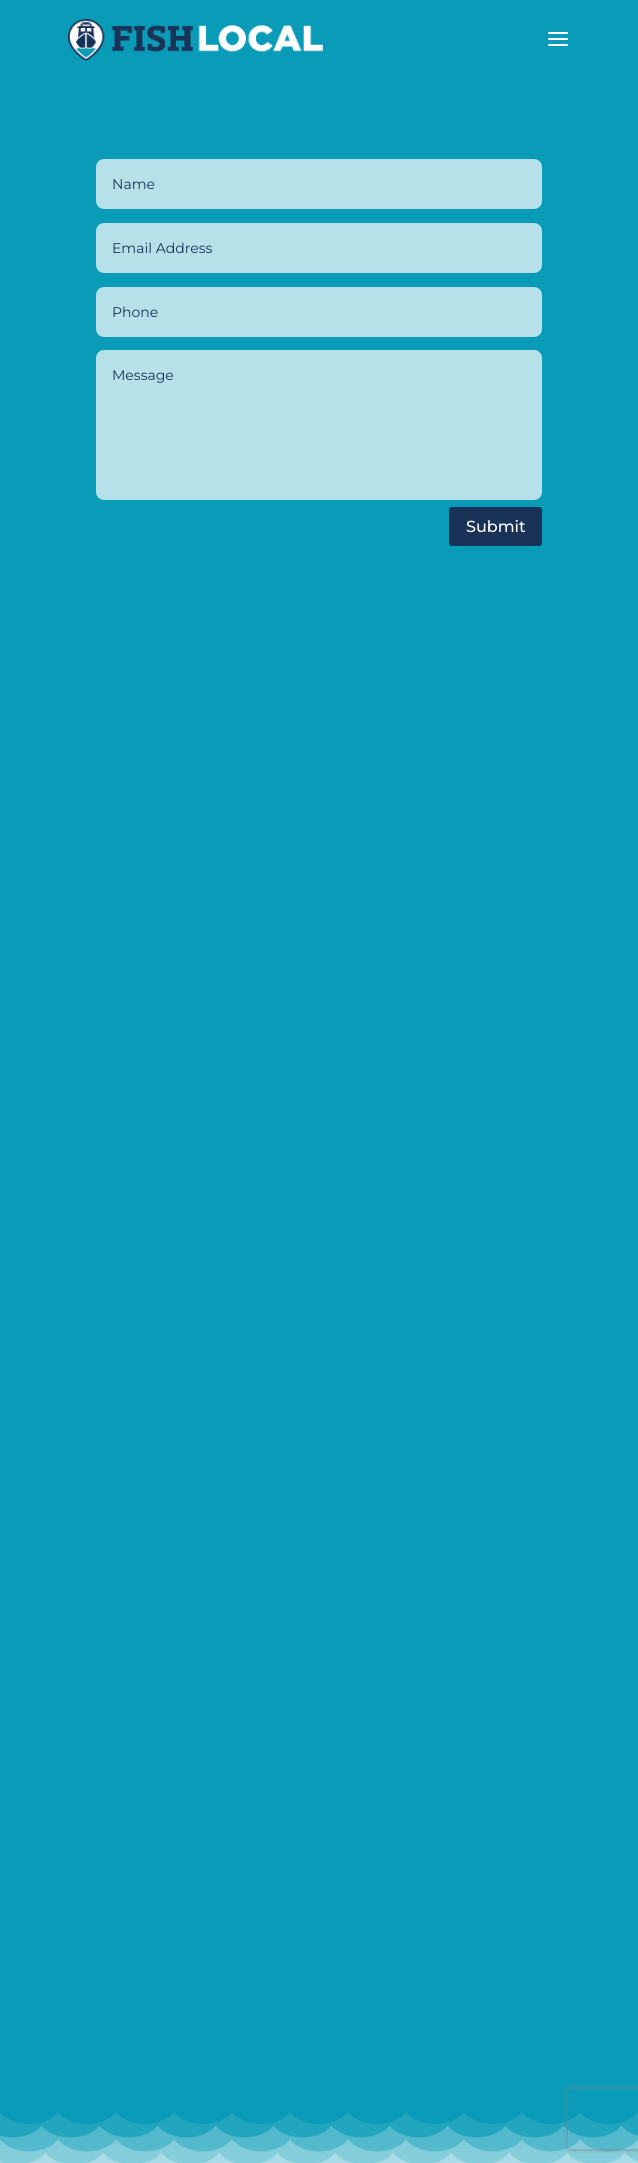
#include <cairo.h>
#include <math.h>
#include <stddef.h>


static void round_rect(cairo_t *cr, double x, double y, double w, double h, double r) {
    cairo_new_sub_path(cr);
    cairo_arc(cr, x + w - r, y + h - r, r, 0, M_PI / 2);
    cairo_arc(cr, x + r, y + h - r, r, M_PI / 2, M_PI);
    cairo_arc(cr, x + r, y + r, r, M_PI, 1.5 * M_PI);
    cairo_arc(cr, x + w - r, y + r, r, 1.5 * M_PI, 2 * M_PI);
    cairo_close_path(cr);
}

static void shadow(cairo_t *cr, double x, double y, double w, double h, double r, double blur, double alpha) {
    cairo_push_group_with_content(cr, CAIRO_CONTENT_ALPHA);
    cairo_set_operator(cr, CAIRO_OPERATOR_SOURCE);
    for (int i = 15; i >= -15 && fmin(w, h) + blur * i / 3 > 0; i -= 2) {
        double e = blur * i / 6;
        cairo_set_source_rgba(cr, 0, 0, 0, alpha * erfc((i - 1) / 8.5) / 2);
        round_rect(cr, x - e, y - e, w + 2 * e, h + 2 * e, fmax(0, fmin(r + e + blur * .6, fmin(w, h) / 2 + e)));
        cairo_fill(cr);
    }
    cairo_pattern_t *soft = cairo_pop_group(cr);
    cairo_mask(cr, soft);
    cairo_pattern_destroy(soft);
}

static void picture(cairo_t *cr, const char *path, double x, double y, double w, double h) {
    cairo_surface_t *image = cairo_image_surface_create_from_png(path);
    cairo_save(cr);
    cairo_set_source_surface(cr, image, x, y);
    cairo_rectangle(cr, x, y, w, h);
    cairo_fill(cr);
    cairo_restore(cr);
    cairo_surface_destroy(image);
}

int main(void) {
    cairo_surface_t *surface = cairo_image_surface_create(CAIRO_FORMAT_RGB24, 638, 2163);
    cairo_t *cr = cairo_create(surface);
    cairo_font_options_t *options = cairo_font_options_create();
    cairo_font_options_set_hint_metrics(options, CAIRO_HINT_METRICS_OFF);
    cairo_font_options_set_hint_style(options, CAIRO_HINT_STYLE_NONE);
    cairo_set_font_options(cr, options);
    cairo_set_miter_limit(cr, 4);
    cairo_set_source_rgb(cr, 0.039, 0.608, 0.718);
    cairo_paint(cr);
    picture(cr, "img1.png", 68, 19, 255, 42);
    picture(cr, "img2.png", 548, 32, 20, 14);
    cairo_set_source_rgb(cr, 0.714, 0.882, 0.914);
    round_rect(cr, 96, 159, 446, 50, 8);
    cairo_fill(cr);
    cairo_select_font_face(cr, "Montserrat Thin", CAIRO_FONT_SLANT_NORMAL, CAIRO_FONT_WEIGHT_NORMAL);
    cairo_set_font_size(cr, 14);
    cairo_set_source_rgb(cr, 0.098, 0.2, 0.345);
    cairo_move_to(cr, 112, 189);
    cairo_show_text(cr, "Name");
    cairo_set_source_rgb(cr, 0.714, 0.882, 0.914);
    round_rect(cr, 96, 223, 446, 50, 8);
    cairo_fill(cr);
    cairo_set_source_rgb(cr, 0.098, 0.2, 0.345);
    cairo_move_to(cr, 112, 253);
    cairo_show_text(cr, "Email Address");
    cairo_set_source_rgb(cr, 0.714, 0.882, 0.914);
    round_rect(cr, 96, 287, 446, 50, 8);
    cairo_fill(cr);
    cairo_set_source_rgb(cr, 0.098, 0.2, 0.345);
    cairo_move_to(cr, 112, 317);
    cairo_show_text(cr, "Phone");
    cairo_set_source_rgb(cr, 0.714, 0.882, 0.914);
    round_rect(cr, 96, 350, 446, 150, 8);
    cairo_fill(cr);
    cairo_set_source_rgb(cr, 0.098, 0.2, 0.345);
    cairo_move_to(cr, 112, 380);
    cairo_show_text(cr, "Message");
    round_rect(cr, 449.5, 507.5, 92, 38, 2.5);
    cairo_fill_preserve(cr);
    cairo_set_line_width(cr, 1);
    cairo_stroke(cr);
    cairo_select_font_face(cr, "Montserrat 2 Thin", CAIRO_FONT_SLANT_NORMAL, CAIRO_FONT_WEIGHT_NORMAL);
    cairo_set_font_size(cr, 16);
    cairo_set_source_rgb(cr, 1, 1, 1);
    cairo_move_to(cr, 466, 532);
    cairo_show_text(cr, "Submit");
    picture(cr, "img3.png", 0, 2112, 638, 51);
    cairo_save(cr);
    cairo_set_fill_rule(cr, CAIRO_FILL_RULE_EVEN_ODD);
    cairo_new_path(cr);
    cairo_move_to(cr, 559, 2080);
    cairo_line_to(cr, 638, 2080);
    cairo_line_to(cr, 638, 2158);
    cairo_line_to(cr, 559, 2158);
    cairo_close_path(cr);
    cairo_move_to(cr, 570, 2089);
    cairo_line_to(cr, 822, 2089);
    cairo_curve_to(cr, 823, 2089, 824, 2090, 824, 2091);
    cairo_line_to(cr, 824, 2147);
    cairo_curve_to(cr, 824, 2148, 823, 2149, 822, 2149);
    cairo_line_to(cr, 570, 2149);
    cairo_curve_to(cr, 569, 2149, 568, 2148, 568, 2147);
    cairo_line_to(cr, 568, 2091);
    cairo_curve_to(cr, 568, 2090, 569, 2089, 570, 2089);
    cairo_close_path(cr);
    cairo_clip(cr);
    cairo_set_source_rgb(cr, 0.502, 0.502, 0.502);
    shadow(cr, 568, 2089, 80, 60, 2, 2.5, 1);
    cairo_restore(cr);
    cairo_surface_write_to_png(surface, "page.png");
    cairo_font_options_destroy(options);
    cairo_destroy(cr);
    cairo_surface_destroy(surface);
    return 0;
}
